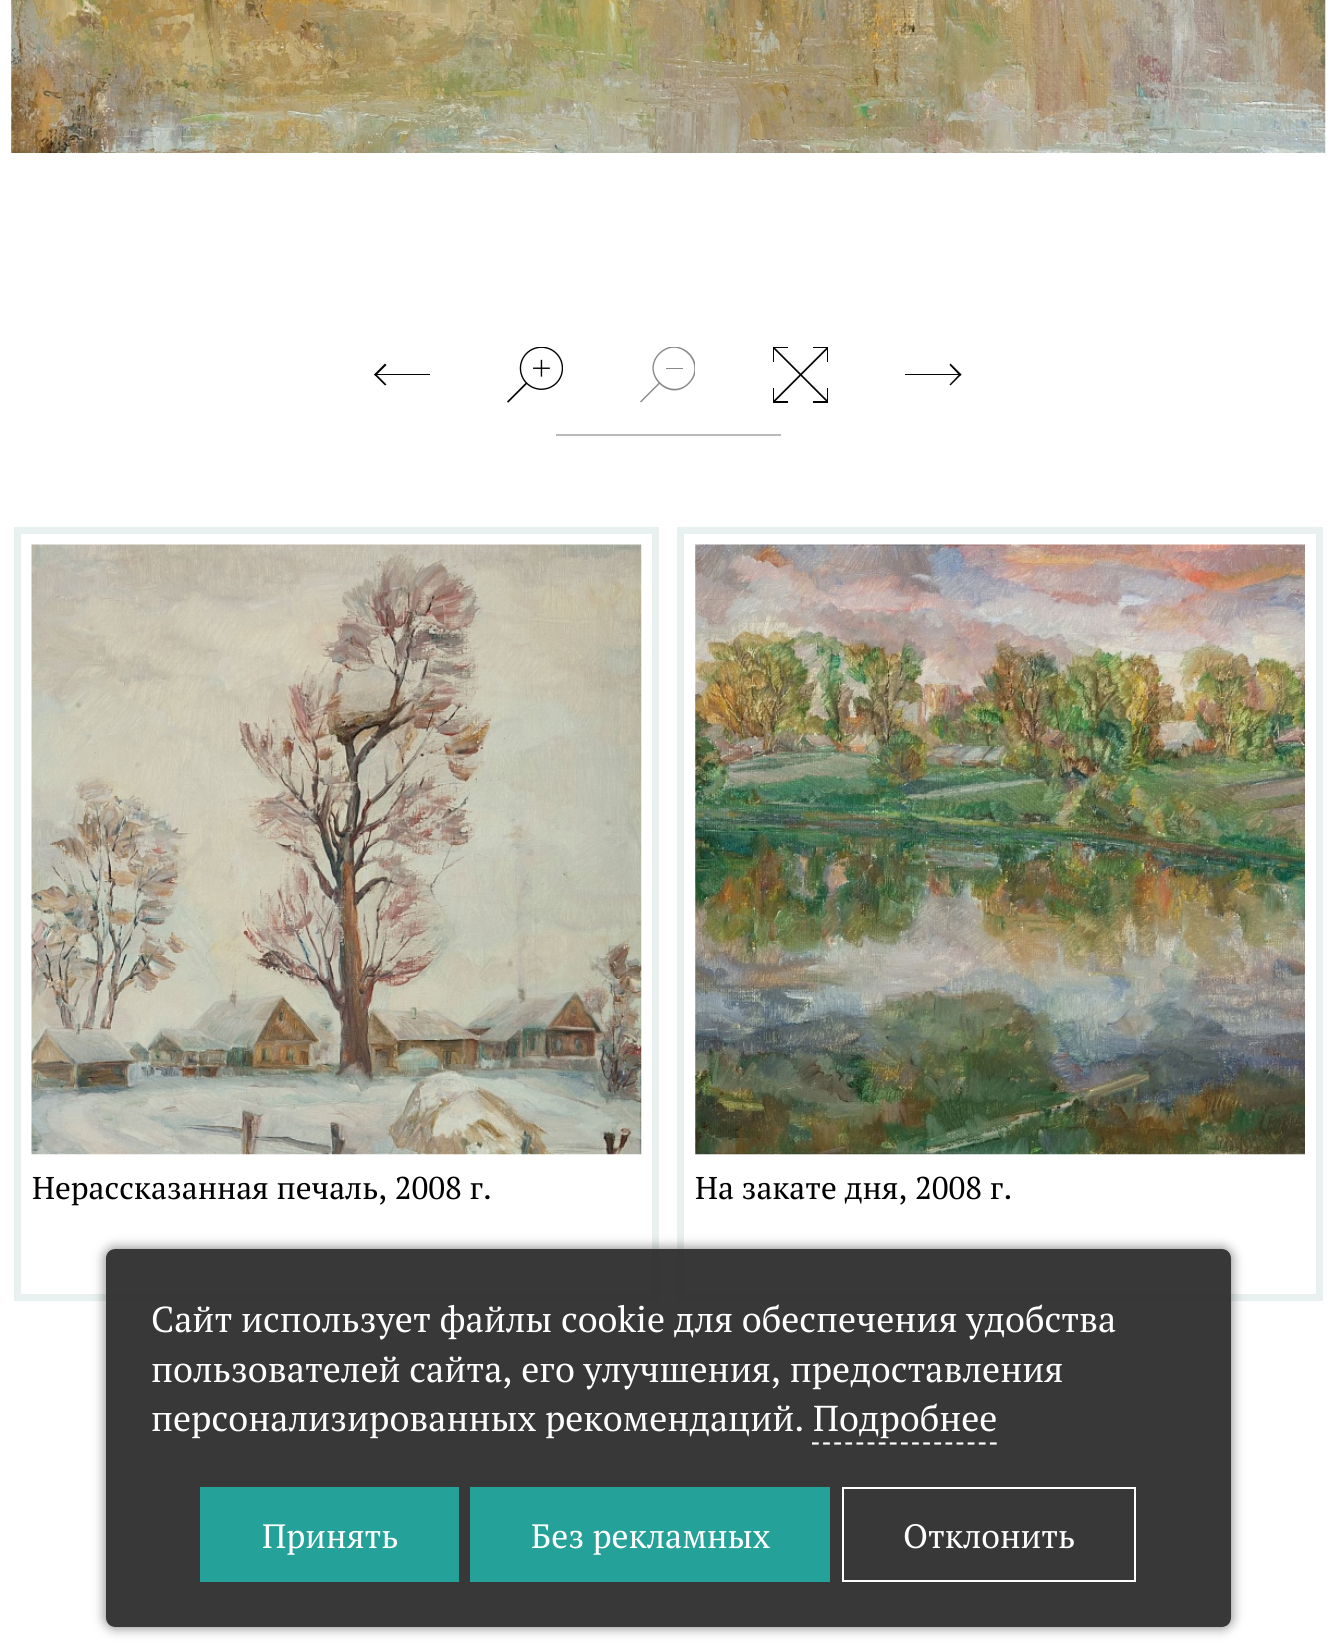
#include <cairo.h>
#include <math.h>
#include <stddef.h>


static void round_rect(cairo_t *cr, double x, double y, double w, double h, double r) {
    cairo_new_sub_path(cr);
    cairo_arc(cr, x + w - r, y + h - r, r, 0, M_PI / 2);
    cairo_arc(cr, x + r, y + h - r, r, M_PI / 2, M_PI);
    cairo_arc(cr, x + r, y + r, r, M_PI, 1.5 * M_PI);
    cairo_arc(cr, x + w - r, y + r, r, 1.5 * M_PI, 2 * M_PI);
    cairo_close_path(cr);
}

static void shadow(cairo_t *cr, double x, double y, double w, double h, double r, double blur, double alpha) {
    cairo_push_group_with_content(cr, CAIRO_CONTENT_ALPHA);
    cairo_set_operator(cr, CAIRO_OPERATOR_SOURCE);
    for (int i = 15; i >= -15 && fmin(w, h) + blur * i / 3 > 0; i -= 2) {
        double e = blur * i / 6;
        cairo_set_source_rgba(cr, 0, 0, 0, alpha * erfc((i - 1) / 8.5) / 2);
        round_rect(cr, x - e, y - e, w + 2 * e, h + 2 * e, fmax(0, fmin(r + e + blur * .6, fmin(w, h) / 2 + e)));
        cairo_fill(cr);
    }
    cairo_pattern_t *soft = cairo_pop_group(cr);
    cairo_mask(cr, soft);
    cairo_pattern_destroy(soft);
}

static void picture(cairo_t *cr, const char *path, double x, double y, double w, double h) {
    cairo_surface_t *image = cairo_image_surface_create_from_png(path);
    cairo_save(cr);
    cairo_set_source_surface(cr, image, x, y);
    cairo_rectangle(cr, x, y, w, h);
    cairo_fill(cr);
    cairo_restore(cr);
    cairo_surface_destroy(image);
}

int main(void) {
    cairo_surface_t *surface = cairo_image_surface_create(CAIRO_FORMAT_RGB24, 1336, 1648);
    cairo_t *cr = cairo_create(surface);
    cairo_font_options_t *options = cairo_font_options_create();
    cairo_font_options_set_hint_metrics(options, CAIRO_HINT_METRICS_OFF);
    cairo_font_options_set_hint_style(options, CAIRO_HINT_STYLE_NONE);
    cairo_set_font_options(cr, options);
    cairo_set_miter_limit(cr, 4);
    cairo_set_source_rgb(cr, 1, 1, 1);
    cairo_paint(cr);
    picture(cr, "img1.png", 11, 0, 1315, 153);
    cairo_set_source_rgb(cr, 0.012, 0.012, 0.012);
    cairo_rectangle(cr, 376, 374, 54, 1);
    cairo_fill(cr);
    cairo_new_path(cr);
    cairo_move_to(cr, 386.5, 365);
    cairo_line_to(cr, 385, 363.5);
    cairo_line_to(cr, 374, 374.5);
    cairo_line_to(cr, 375.5, 376);
    cairo_close_path(cr);
    cairo_fill(cr);
    cairo_new_path(cr);
    cairo_move_to(cr, 385, 385.5);
    cairo_line_to(cr, 386.5, 384.5);
    cairo_line_to(cr, 375.5, 373.5);
    cairo_line_to(cr, 374, 374.5);
    cairo_close_path(cr);
    cairo_fill(cr);
    picture(cr, "img2.png", 507, 347, 56, 56);
    cairo_save(cr);
    cairo_rectangle(cr, 639, 347, 56, 56);
    cairo_clip(cr);
    cairo_set_source_rgb(cr, 0.533, 0.533, 0.533);
    cairo_new_path(cr);
    cairo_move_to(cr, 659, 353);
    cairo_curve_to(cr, 639, 373, 669, 404, 689, 384);
    cairo_curve_to(cr, 710, 363, 679, 333, 659, 353);
    cairo_close_path(cr);
    cairo_move_to(cr, 688, 383);
    cairo_curve_to(cr, 670, 401, 641, 373, 660, 354);
    cairo_curve_to(cr, 679, 335, 707, 364, 688, 383);
    cairo_close_path(cr);
    cairo_fill(cr);
    cairo_restore(cr);
    cairo_set_source_rgb(cr, 0.533, 0.533, 0.533);
    cairo_rectangle(cr, 666, 368, 17, 1);
    cairo_fill(cr);
    cairo_new_path(cr);
    cairo_move_to(cr, 640, 401.5);
    cairo_line_to(cr, 641, 402.5);
    cairo_line_to(cr, 660, 383.5);
    cairo_line_to(cr, 659, 382.5);
    cairo_close_path(cr);
    cairo_fill(cr);
    picture(cr, "img3.png", 773, 347, 55, 56);
    cairo_set_source_rgb(cr, 0.012, 0.012, 0.012);
    cairo_rectangle(cr, 905, 374, 55, 1);
    cairo_fill(cr);
    cairo_new_path(cr);
    cairo_move_to(cr, 949.5, 384.5);
    cairo_line_to(cr, 950.5, 385.5);
    cairo_line_to(cr, 961.5, 374.5);
    cairo_line_to(cr, 960, 373.5);
    cairo_close_path(cr);
    cairo_fill(cr);
    cairo_new_path(cr);
    cairo_move_to(cr, 950.5, 363.5);
    cairo_line_to(cr, 949.5, 365);
    cairo_line_to(cr, 960, 376);
    cairo_line_to(cr, 961.5, 374.5);
    cairo_close_path(cr);
    cairo_fill(cr);
    cairo_set_source_rgb(cr, 0.725, 0.725, 0.725);
    cairo_rectangle(cr, 556, 434, 225, 2);
    cairo_fill(cr);
    cairo_rectangle(cr, 17.5, 530.5, 638, 767);
    cairo_set_source_rgb(cr, 0.914, 0.941, 0.941);
    cairo_set_line_width(cr, 7);
    cairo_stroke(cr);
    picture(cr, "img4.png", 31, 544, 611, 611);
    cairo_select_font_face(cr, "PT Serif", CAIRO_FONT_SLANT_NORMAL, CAIRO_FONT_WEIGHT_NORMAL);
    cairo_set_font_size(cr, 31.5);
    cairo_set_source_rgb(cr, 0, 0, 0);
    cairo_move_to(cr, 32, 1199);
    cairo_show_text(cr, "Нерассказанная печаль, 2008 г.");
    cairo_rectangle(cr, 680.5, 530.5, 639, 767);
    cairo_set_source_rgb(cr, 0.914, 0.941, 0.941);
    cairo_stroke(cr);
    picture(cr, "img5.png", 695, 544, 610, 611);
    cairo_set_source_rgb(cr, 0, 0, 0);
    cairo_move_to(cr, 695, 1199);
    cairo_show_text(cr, "На закате дня, 2008 г.");
    cairo_save(cr);
    cairo_set_fill_rule(cr, CAIRO_FILL_RULE_EVEN_ODD);
    cairo_new_path(cr);
    cairo_move_to(cr, 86, 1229);
    cairo_line_to(cr, 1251, 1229);
    cairo_line_to(cr, 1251, 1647);
    cairo_line_to(cr, 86, 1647);
    cairo_close_path(cr);
    cairo_move_to(cr, 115, 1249);
    cairo_line_to(cr, 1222, 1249);
    cairo_curve_to(cr, 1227, 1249, 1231, 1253, 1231, 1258);
    cairo_line_to(cr, 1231, 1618);
    cairo_curve_to(cr, 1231, 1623, 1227, 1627, 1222, 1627);
    cairo_line_to(cr, 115, 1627);
    cairo_curve_to(cr, 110, 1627, 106, 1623, 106, 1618);
    cairo_line_to(cr, 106, 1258);
    cairo_curve_to(cr, 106, 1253, 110, 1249, 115, 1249);
    cairo_close_path(cr);
    cairo_clip(cr);
    cairo_set_source_rgb(cr, 0, 0, 0);
    shadow(cr, 104, 1247, 1129, 382, 11, 5.5, 0.4);
    cairo_restore(cr);
    cairo_set_source_rgba(cr, 0.176, 0.173, 0.173, 0.94);
    round_rect(cr, 106, 1249, 1125, 378, 9);
    cairo_fill(cr);
    cairo_set_font_size(cr, 36);
    cairo_set_source_rgb(cr, 1, 1, 1);
    cairo_move_to(cr, 151, 1332);
    cairo_show_text(cr, "Сайт использует файлы cookie для обеспечения удобства");
    cairo_move_to(cr, 151, 1382);
    cairo_show_text(cr, "пользователей сайта, его улучшения, предоставления");
    cairo_move_to(cr, 151, 1431);
    cairo_show_text(cr, "персонализированных рекомендаций. Подробнее");
    cairo_new_path(cr);
    cairo_move_to(cr, 812, 1443.5);
    cairo_line_to(cr, 997, 1443.5);
    cairo_set_line_width(cr, 2.2);
    cairo_set_dash(cr, (double[]){6.75, 4.37}, 2, 0);
    cairo_stroke(cr);
    cairo_set_source_rgb(cr, 0.141, 0.631, 0.596);
    cairo_rectangle(cr, 200, 1487, 259, 95);
    cairo_fill(cr);
    cairo_set_font_size(cr, 33.75);
    cairo_set_source_rgb(cr, 1, 1, 1);
    cairo_move_to(cr, 262, 1548);
    cairo_show_text(cr, "Принять");
    cairo_set_source_rgb(cr, 0.141, 0.631, 0.596);
    cairo_rectangle(cr, 470, 1487, 360, 95);
    cairo_fill(cr);
    cairo_set_source_rgb(cr, 1, 1, 1);
    cairo_move_to(cr, 531, 1548);
    cairo_show_text(cr, "Без рекламных");
    cairo_rectangle(cr, 843, 1488, 292, 93);
    cairo_set_line_width(cr, 2);
    cairo_set_dash(cr, NULL, 0, 0);
    cairo_stroke(cr);
    cairo_move_to(cr, 903, 1548);
    cairo_show_text(cr, "Отклонить");
    cairo_surface_write_to_png(surface, "page.png");
    cairo_font_options_destroy(options);
    cairo_destroy(cr);
    cairo_surface_destroy(surface);
    return 0;
}
